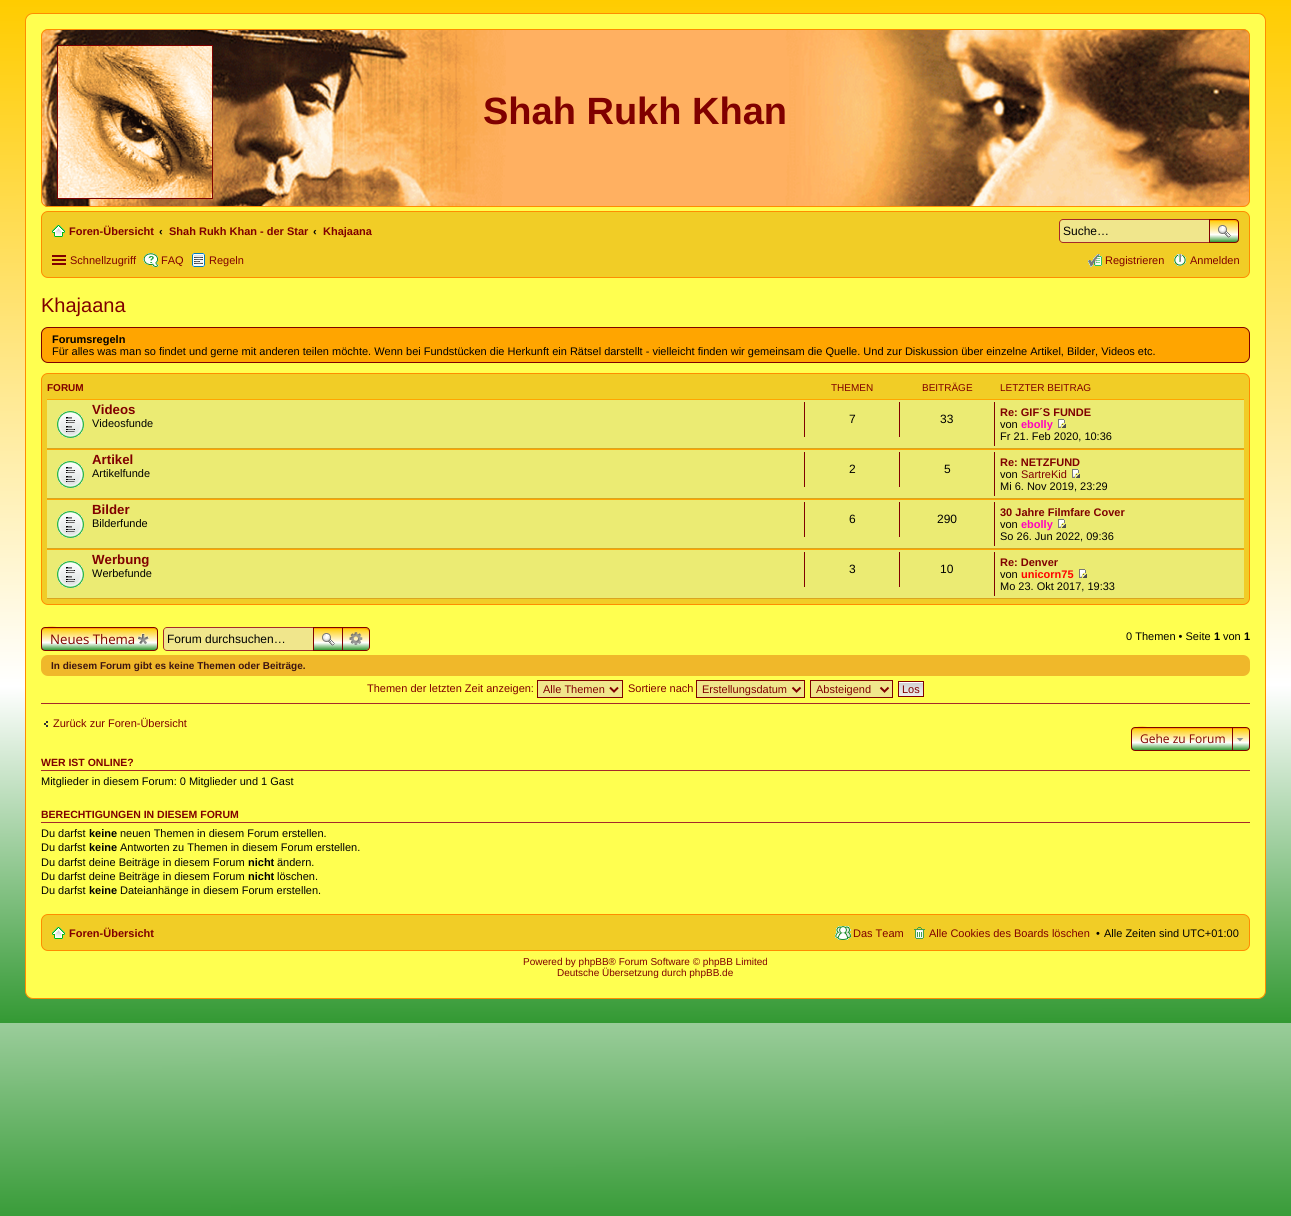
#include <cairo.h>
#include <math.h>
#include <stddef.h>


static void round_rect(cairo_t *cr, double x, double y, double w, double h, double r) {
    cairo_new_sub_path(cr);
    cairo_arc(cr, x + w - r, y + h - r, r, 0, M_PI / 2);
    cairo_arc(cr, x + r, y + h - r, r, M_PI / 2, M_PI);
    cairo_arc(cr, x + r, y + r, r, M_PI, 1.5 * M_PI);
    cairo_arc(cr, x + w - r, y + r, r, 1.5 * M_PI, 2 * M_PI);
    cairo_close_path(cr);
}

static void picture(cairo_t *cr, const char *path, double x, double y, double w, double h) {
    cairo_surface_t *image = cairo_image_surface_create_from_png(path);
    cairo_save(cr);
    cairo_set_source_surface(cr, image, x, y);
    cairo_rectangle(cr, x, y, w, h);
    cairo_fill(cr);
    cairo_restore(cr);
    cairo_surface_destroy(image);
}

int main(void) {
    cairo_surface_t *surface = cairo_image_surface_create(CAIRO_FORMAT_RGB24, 1291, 1216);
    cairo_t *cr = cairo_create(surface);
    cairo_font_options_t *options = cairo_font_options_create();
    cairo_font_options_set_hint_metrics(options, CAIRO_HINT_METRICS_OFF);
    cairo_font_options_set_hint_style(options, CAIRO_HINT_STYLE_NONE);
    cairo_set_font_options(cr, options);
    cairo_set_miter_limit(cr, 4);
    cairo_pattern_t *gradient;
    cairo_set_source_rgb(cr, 1, 1, 1);
    cairo_paint(cr);
    gradient = cairo_pattern_create_linear(645, 0, 646, 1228);
    cairo_pattern_add_color_stop_rgba(gradient, 0, 1, 0.8, 0, 1);
    cairo_pattern_add_color_stop_rgba(gradient, 0.67, 1, 1, 1, 1);
    cairo_pattern_add_color_stop_rgba(gradient, 1, 0.2, 0.6, 0.2, 1);
    cairo_set_source(cr, gradient);
    cairo_pattern_destroy(gradient);
    cairo_rectangle(cr, 0, 1023, 1291, 193);
    cairo_fill(cr);
    gradient = cairo_pattern_create_linear(645, 0, 646, 1023);
    cairo_pattern_add_color_stop_rgba(gradient, 0, 1, 0.8, 0, 1);
    cairo_pattern_add_color_stop_rgba(gradient, 0.67, 1, 1, 1, 1);
    cairo_pattern_add_color_stop_rgba(gradient, 1, 0.2, 0.6, 0.2, 1);
    cairo_set_source(cr, gradient);
    cairo_pattern_destroy(gradient);
    cairo_rectangle(cr, 0, 0, 1291, 1023);
    cairo_fill(cr);
    cairo_set_source_rgb(cr, 1, 1, 0.314);
    round_rect(cr, 25.5, 13.5, 1240, 985, 7.5);
    cairo_fill_preserve(cr);
    cairo_set_source_rgb(cr, 1, 0.549, 0);
    cairo_set_line_width(cr, 1);
    cairo_stroke(cr);
    picture(cr, "img1.png", 41, 29, 1209, 178);
    round_rect(cr, 41.5, 29.5, 1208, 177, 6.5);
    cairo_stroke(cr);
    picture(cr, "img2.png", 58, 46, 154, 152);
    cairo_rectangle(cr, 57.5, 45.5, 155, 153);
    cairo_set_source_rgb(cr, 0.502, 0, 0);
    cairo_stroke(cr);
    cairo_select_font_face(cr, "Liberation Sans", CAIRO_FONT_SLANT_NORMAL, CAIRO_FONT_WEIGHT_BOLD);
    cairo_set_font_size(cr, 38);
    cairo_move_to(cr, 483, 124);
    cairo_show_text(cr, "Shah Rukh Khan");
    cairo_set_source_rgb(cr, 0.945, 0.804, 0.149);
    round_rect(cr, 41.5, 211.5, 1208, 66, 6.5);
    cairo_fill_preserve(cr);
    cairo_set_source_rgb(cr, 1, 0.549, 0);
    cairo_stroke(cr);
    picture(cr, "img3.png", 52, 225, 13, 12);
    cairo_set_font_size(cr, 11);
    cairo_set_source_rgb(cr, 0.502, 0, 0);
    cairo_move_to(cr, 69, 235);
    cairo_show_text(cr, "Foren-Übersicht");
    cairo_set_source_rgb(cr, 0, 0, 0);
    cairo_move_to(cr, 159, 235);
    cairo_show_text(cr, "‹");
    cairo_set_source_rgb(cr, 0.502, 0, 0);
    cairo_move_to(cr, 169, 235);
    cairo_show_text(cr, "Shah Rukh Khan - der Star");
    cairo_set_source_rgb(cr, 0, 0, 0);
    cairo_move_to(cr, 313, 235);
    cairo_show_text(cr, "‹");
    cairo_set_source_rgb(cr, 0.502, 0, 0);
    cairo_move_to(cr, 323, 235);
    cairo_show_text(cr, "Khajaana");
    cairo_set_source_rgb(cr, 0.941, 0.902, 0.549);
    cairo_new_path(cr);
    cairo_move_to(cr, 1063, 220);
    cairo_line_to(cr, 1209, 220);
    cairo_line_to(cr, 1209, 242);
    cairo_line_to(cr, 1063, 242);
    cairo_curve_to(cr, 1061.5, 242, 1060, 240.5, 1060, 239);
    cairo_line_to(cr, 1060, 223);
    cairo_curve_to(cr, 1060, 221.5, 1061.5, 220, 1063, 220);
    cairo_close_path(cr);
    cairo_fill(cr);
    cairo_set_source_rgb(cr, 0.647, 0.165, 0.165);
    cairo_set_fill_rule(cr, CAIRO_FILL_RULE_EVEN_ODD);
    cairo_new_path(cr);
    cairo_move_to(cr, 1063, 219);
    cairo_line_to(cr, 1209, 219);
    cairo_line_to(cr, 1209, 243);
    cairo_line_to(cr, 1063, 243);
    cairo_curve_to(cr, 1061, 243, 1059, 241, 1059, 239);
    cairo_line_to(cr, 1059, 223);
    cairo_curve_to(cr, 1059, 221, 1061, 219, 1063, 219);
    cairo_close_path(cr);
    cairo_move_to(cr, 1063, 220);
    cairo_line_to(cr, 1209, 220);
    cairo_line_to(cr, 1209, 242);
    cairo_line_to(cr, 1063, 242);
    cairo_curve_to(cr, 1061, 242, 1060, 241, 1060, 239);
    cairo_line_to(cr, 1060, 223);
    cairo_curve_to(cr, 1060, 221, 1061, 220, 1063, 220);
    cairo_close_path(cr);
    cairo_fill(cr);
    cairo_select_font_face(cr, "Liberation Sans", CAIRO_FONT_SLANT_NORMAL, CAIRO_FONT_WEIGHT_NORMAL);
    cairo_set_font_size(cr, 12);
    cairo_set_source_rgb(cr, 0, 0, 0);
    cairo_move_to(cr, 1063, 235);
    cairo_show_text(cr, "Suche…");
    cairo_save(cr);
    cairo_set_fill_rule(cr, CAIRO_FILL_RULE_WINDING);
    cairo_new_path(cr);
    cairo_move_to(cr, 1209, 219);
    cairo_line_to(cr, 1235, 219);
    cairo_curve_to(cr, 1237, 219, 1239, 221, 1239, 223);
    cairo_line_to(cr, 1239, 239);
    cairo_curve_to(cr, 1239, 241, 1237, 243, 1235, 243);
    cairo_line_to(cr, 1209, 243);
    cairo_close_path(cr);
    cairo_clip(cr);
    gradient = cairo_pattern_create_linear(1224, 220, 1224, 242);
    cairo_pattern_add_color_stop_rgba(gradient, 0, 1, 0.8, 0, 1);
    cairo_pattern_add_color_stop_rgba(gradient, 0.67, 1, 1, 1, 1);
    cairo_pattern_add_color_stop_rgba(gradient, 1, 0.2, 0.6, 0.2, 1);
    cairo_set_source(cr, gradient);
    cairo_pattern_destroy(gradient);
    cairo_rectangle(cr, 1210, 220, 29, 22);
    cairo_fill(cr);
    cairo_restore(cr);
    cairo_set_source_rgb(cr, 1, 0.647, 0);
    cairo_set_fill_rule(cr, CAIRO_FILL_RULE_WINDING);
    cairo_new_path(cr);
    cairo_move_to(cr, 1210, 221);
    cairo_line_to(cr, 1231, 221);
    cairo_curve_to(cr, 1236, 221, 1237.5, 221.5, 1238, 223.5);
    cairo_line_to(cr, 1238, 223);
    cairo_curve_to(cr, 1238, 221.5, 1236.5, 220, 1235, 220);
    cairo_line_to(cr, 1210, 220);
    cairo_close_path(cr);
    cairo_fill(cr);
    cairo_new_path(cr);
    cairo_move_to(cr, 1209.5, 219.5);
    cairo_line_to(cr, 1235, 219.5);
    cairo_curve_to(cr, 1237, 219.5, 1238.5, 221, 1238.5, 223);
    cairo_line_to(cr, 1238.5, 239);
    cairo_curve_to(cr, 1238.5, 241, 1237, 242.5, 1235, 242.5);
    cairo_line_to(cr, 1209.5, 242.5);
    cairo_close_path(cr);
    cairo_set_source_rgb(cr, 0.502, 0, 0);
    cairo_stroke(cr);
    picture(cr, "img4.png", 1218, 225, 13, 13);
    cairo_rectangle(cr, 52, 255, 14, 2);
    cairo_fill(cr);
    cairo_rectangle(cr, 52, 259, 14, 2);
    cairo_fill(cr);
    cairo_rectangle(cr, 52, 263, 14, 2);
    cairo_fill(cr);
    cairo_set_font_size(cr, 11);
    cairo_move_to(cr, 70, 264);
    cairo_show_text(cr, "Schnellzugriff");
    picture(cr, "img5.png", 143, 253, 16, 14);
    cairo_move_to(cr, 161, 264);
    cairo_show_text(cr, "FAQ");
    picture(cr, "img6.png", 192, 253, 13, 14);
    cairo_move_to(cr, 209, 264);
    cairo_show_text(cr, "Regeln");
    picture(cr, "img7.png", 1088, 254, 14, 13);
    cairo_move_to(cr, 1105, 264);
    cairo_show_text(cr, "Registrieren");
    picture(cr, "img8.png", 1174, 254, 12, 12);
    cairo_move_to(cr, 1190, 264);
    cairo_show_text(cr, "Anmelden");
    cairo_set_font_size(cr, 20);
    cairo_move_to(cr, 41, 312);
    cairo_show_text(cr, "Khajaana");
    cairo_set_source_rgb(cr, 1, 0.647, 0);
    round_rect(cr, 41.5, 327.5, 1208, 35, 6.5);
    cairo_fill_preserve(cr);
    cairo_set_source_rgb(cr, 0.502, 0, 0);
    cairo_stroke(cr);
    cairo_select_font_face(cr, "Liberation Sans", CAIRO_FONT_SLANT_NORMAL, CAIRO_FONT_WEIGHT_BOLD);
    cairo_set_font_size(cr, 11);
    cairo_set_source_rgb(cr, 0, 0, 0);
    cairo_move_to(cr, 52, 343);
    cairo_show_text(cr, "Forumsregeln");
    cairo_select_font_face(cr, "Liberation Sans", CAIRO_FONT_SLANT_NORMAL, CAIRO_FONT_WEIGHT_NORMAL);
    cairo_move_to(cr, 52, 355);
    cairo_show_text(cr, "Für alles was man so findet und gerne mit anderen teilen möchte. Wenn bei Fundstücken die Herkunft ein Rätsel darstellt - vielleicht finden wir gemeinsam die Quelle. Und zur Diskussion über einzelne Artikel, Bilder, Videos etc.");
    cairo_set_source_rgb(cr, 0.945, 0.804, 0.149);
    round_rect(cr, 41.5, 373.5, 1208, 231, 6.5);
    cairo_fill_preserve(cr);
    cairo_set_source_rgb(cr, 1, 0.549, 0);
    cairo_stroke(cr);
    cairo_select_font_face(cr, "Liberation Sans", CAIRO_FONT_SLANT_NORMAL, CAIRO_FONT_WEIGHT_BOLD);
    cairo_set_font_size(cr, 10);
    cairo_set_source_rgb(cr, 0.502, 0, 0);
    cairo_move_to(cr, 47, 391);
    cairo_show_text(cr, "FORUM");
    cairo_select_font_face(cr, "Liberation Sans", CAIRO_FONT_SLANT_NORMAL, CAIRO_FONT_WEIGHT_NORMAL);
    cairo_move_to(cr, 831, 391);
    cairo_show_text(cr, "THEMEN");
    cairo_move_to(cr, 922, 391);
    cairo_show_text(cr, "BEITRÄGE");
    cairo_move_to(cr, 1000, 391);
    cairo_show_text(cr, "LETZTER BEITRAG");
    cairo_set_source_rgb(cr, 0.918, 0.918, 0.451);
    cairo_rectangle(cr, 47, 400, 1197, 198);
    cairo_fill(cr);
    cairo_set_source_rgb(cr, 1, 0.647, 0);
    cairo_rectangle(cr, 47, 399, 1197, 1);
    cairo_fill(cr);
    cairo_set_source_rgb(cr, 0.855, 0.647, 0.125);
    cairo_rectangle(cr, 47, 448, 1197, 1);
    cairo_fill(cr);
    picture(cr, "img9.png", 57, 411, 27, 27);
    cairo_select_font_face(cr, "Liberation Sans", CAIRO_FONT_SLANT_NORMAL, CAIRO_FONT_WEIGHT_BOLD);
    cairo_set_font_size(cr, 13.25);
    cairo_set_source_rgb(cr, 0.502, 0, 0);
    cairo_move_to(cr, 92, 414);
    cairo_show_text(cr, "Videos");
    cairo_select_font_face(cr, "Liberation Sans", CAIRO_FONT_SLANT_NORMAL, CAIRO_FONT_WEIGHT_NORMAL);
    cairo_set_font_size(cr, 11);
    cairo_set_source_rgb(cr, 0, 0, 0);
    cairo_move_to(cr, 92, 427);
    cairo_show_text(cr, "Videosfunde");
    cairo_set_source_rgb(cr, 0.502, 0, 0);
    cairo_rectangle(cr, 804, 402, 1, 35);
    cairo_fill(cr);
    cairo_set_font_size(cr, 12);
    cairo_set_source_rgb(cr, 0, 0, 0);
    cairo_move_to(cr, 849, 423);
    cairo_show_text(cr, "7");
    cairo_set_source_rgb(cr, 0.502, 0, 0);
    cairo_rectangle(cr, 899, 402, 1, 35);
    cairo_fill(cr);
    cairo_set_source_rgb(cr, 0, 0, 0);
    cairo_move_to(cr, 940, 423);
    cairo_show_text(cr, "33");
    cairo_set_source_rgb(cr, 0.502, 0, 0);
    cairo_rectangle(cr, 994, 402, 1, 44);
    cairo_fill(cr);
    cairo_select_font_face(cr, "Liberation Sans", CAIRO_FONT_SLANT_NORMAL, CAIRO_FONT_WEIGHT_BOLD);
    cairo_set_font_size(cr, 11);
    cairo_move_to(cr, 1000, 416);
    cairo_show_text(cr, "Re: GIF´S FUNDE");
    cairo_select_font_face(cr, "Liberation Sans", CAIRO_FONT_SLANT_NORMAL, CAIRO_FONT_WEIGHT_NORMAL);
    cairo_set_source_rgb(cr, 0, 0, 0);
    cairo_move_to(cr, 1000, 428);
    cairo_show_text(cr, "von");
    cairo_select_font_face(cr, "Liberation Sans", CAIRO_FONT_SLANT_NORMAL, CAIRO_FONT_WEIGHT_BOLD);
    cairo_set_source_rgb(cr, 1, 0, 0.749);
    cairo_move_to(cr, 1021, 428);
    cairo_show_text(cr, "ebolly");
    picture(cr, "img10.png", 1058, 419, 8, 9);
    cairo_select_font_face(cr, "Liberation Sans", CAIRO_FONT_SLANT_NORMAL, CAIRO_FONT_WEIGHT_NORMAL);
    cairo_set_source_rgb(cr, 0, 0, 0);
    cairo_move_to(cr, 1000, 440);
    cairo_show_text(cr, "Fr 21. Feb 2020, 10:36");
    cairo_set_source_rgb(cr, 1, 0.647, 0);
    cairo_rectangle(cr, 47, 449, 1197, 1);
    cairo_fill(cr);
    cairo_set_source_rgb(cr, 0.855, 0.647, 0.125);
    cairo_rectangle(cr, 47, 498, 1197, 1);
    cairo_fill(cr);
    picture(cr, "img9.png", 57, 461, 27, 27);
    cairo_select_font_face(cr, "Liberation Sans", CAIRO_FONT_SLANT_NORMAL, CAIRO_FONT_WEIGHT_BOLD);
    cairo_set_font_size(cr, 13.25);
    cairo_set_source_rgb(cr, 0.502, 0, 0);
    cairo_move_to(cr, 92, 464);
    cairo_show_text(cr, "Artikel");
    cairo_select_font_face(cr, "Liberation Sans", CAIRO_FONT_SLANT_NORMAL, CAIRO_FONT_WEIGHT_NORMAL);
    cairo_set_font_size(cr, 11);
    cairo_set_source_rgb(cr, 0, 0, 0);
    cairo_move_to(cr, 92, 477);
    cairo_show_text(cr, "Artikelfunde");
    cairo_set_source_rgb(cr, 0.502, 0, 0);
    cairo_rectangle(cr, 804, 452, 1, 35);
    cairo_fill(cr);
    cairo_set_font_size(cr, 12);
    cairo_set_source_rgb(cr, 0, 0, 0);
    cairo_move_to(cr, 849, 473);
    cairo_show_text(cr, "2");
    cairo_set_source_rgb(cr, 0.502, 0, 0);
    cairo_rectangle(cr, 899, 452, 1, 35);
    cairo_fill(cr);
    cairo_set_source_rgb(cr, 0, 0, 0);
    cairo_move_to(cr, 944, 473);
    cairo_show_text(cr, "5");
    cairo_set_source_rgb(cr, 0.502, 0, 0);
    cairo_rectangle(cr, 994, 452, 1, 44);
    cairo_fill(cr);
    cairo_select_font_face(cr, "Liberation Sans", CAIRO_FONT_SLANT_NORMAL, CAIRO_FONT_WEIGHT_BOLD);
    cairo_set_font_size(cr, 11);
    cairo_move_to(cr, 1000, 466);
    cairo_show_text(cr, "Re: NETZFUND");
    cairo_select_font_face(cr, "Liberation Sans", CAIRO_FONT_SLANT_NORMAL, CAIRO_FONT_WEIGHT_NORMAL);
    cairo_set_source_rgb(cr, 0, 0, 0);
    cairo_move_to(cr, 1000, 478);
    cairo_show_text(cr, "von");
    cairo_set_source_rgb(cr, 0.502, 0, 0);
    cairo_move_to(cr, 1021, 478);
    cairo_show_text(cr, "SartreKid");
    picture(cr, "img10.png", 1072, 469, 8, 9);
    cairo_set_source_rgb(cr, 0, 0, 0);
    cairo_move_to(cr, 1000, 490);
    cairo_show_text(cr, "Mi 6. Nov 2019, 23:29");
    cairo_set_source_rgb(cr, 1, 0.647, 0);
    cairo_rectangle(cr, 47, 499, 1197, 1);
    cairo_fill(cr);
    cairo_set_source_rgb(cr, 0.855, 0.647, 0.125);
    cairo_rectangle(cr, 47, 548, 1197, 1);
    cairo_fill(cr);
    picture(cr, "img9.png", 57, 511, 27, 27);
    cairo_select_font_face(cr, "Liberation Sans", CAIRO_FONT_SLANT_NORMAL, CAIRO_FONT_WEIGHT_BOLD);
    cairo_set_font_size(cr, 13.25);
    cairo_set_source_rgb(cr, 0.502, 0, 0);
    cairo_move_to(cr, 92, 514);
    cairo_show_text(cr, "Bilder");
    cairo_select_font_face(cr, "Liberation Sans", CAIRO_FONT_SLANT_NORMAL, CAIRO_FONT_WEIGHT_NORMAL);
    cairo_set_font_size(cr, 11);
    cairo_set_source_rgb(cr, 0, 0, 0);
    cairo_move_to(cr, 92, 527);
    cairo_show_text(cr, "Bilderfunde");
    cairo_set_source_rgb(cr, 0.502, 0, 0);
    cairo_rectangle(cr, 804, 502, 1, 35);
    cairo_fill(cr);
    cairo_set_font_size(cr, 12);
    cairo_set_source_rgb(cr, 0, 0, 0);
    cairo_move_to(cr, 849, 523);
    cairo_show_text(cr, "6");
    cairo_set_source_rgb(cr, 0.502, 0, 0);
    cairo_rectangle(cr, 899, 502, 1, 35);
    cairo_fill(cr);
    cairo_set_source_rgb(cr, 0, 0, 0);
    cairo_move_to(cr, 937, 523);
    cairo_show_text(cr, "290");
    cairo_set_source_rgb(cr, 0.502, 0, 0);
    cairo_rectangle(cr, 994, 502, 1, 44);
    cairo_fill(cr);
    cairo_select_font_face(cr, "Liberation Sans", CAIRO_FONT_SLANT_NORMAL, CAIRO_FONT_WEIGHT_BOLD);
    cairo_set_font_size(cr, 11);
    cairo_move_to(cr, 1000, 516);
    cairo_show_text(cr, "30 Jahre Filmfare Cover");
    cairo_select_font_face(cr, "Liberation Sans", CAIRO_FONT_SLANT_NORMAL, CAIRO_FONT_WEIGHT_NORMAL);
    cairo_set_source_rgb(cr, 0, 0, 0);
    cairo_move_to(cr, 1000, 528);
    cairo_show_text(cr, "von");
    cairo_select_font_face(cr, "Liberation Sans", CAIRO_FONT_SLANT_NORMAL, CAIRO_FONT_WEIGHT_BOLD);
    cairo_set_source_rgb(cr, 1, 0, 0.749);
    cairo_move_to(cr, 1021, 528);
    cairo_show_text(cr, "ebolly");
    picture(cr, "img10.png", 1058, 519, 8, 9);
    cairo_select_font_face(cr, "Liberation Sans", CAIRO_FONT_SLANT_NORMAL, CAIRO_FONT_WEIGHT_NORMAL);
    cairo_set_source_rgb(cr, 0, 0, 0);
    cairo_move_to(cr, 1000, 540);
    cairo_show_text(cr, "So 26. Jun 2022, 09:36");
    cairo_set_source_rgb(cr, 1, 0.647, 0);
    cairo_rectangle(cr, 47, 549, 1197, 1);
    cairo_fill(cr);
    cairo_set_source_rgb(cr, 0.855, 0.647, 0.125);
    cairo_rectangle(cr, 47, 598, 1197, 1);
    cairo_fill(cr);
    picture(cr, "img9.png", 57, 561, 27, 27);
    cairo_select_font_face(cr, "Liberation Sans", CAIRO_FONT_SLANT_NORMAL, CAIRO_FONT_WEIGHT_BOLD);
    cairo_set_font_size(cr, 13.25);
    cairo_set_source_rgb(cr, 0.502, 0, 0);
    cairo_move_to(cr, 92, 564);
    cairo_show_text(cr, "Werbung");
    cairo_select_font_face(cr, "Liberation Sans", CAIRO_FONT_SLANT_NORMAL, CAIRO_FONT_WEIGHT_NORMAL);
    cairo_set_font_size(cr, 11);
    cairo_set_source_rgb(cr, 0, 0, 0);
    cairo_move_to(cr, 92, 577);
    cairo_show_text(cr, "Werbefunde");
    cairo_set_source_rgb(cr, 0.502, 0, 0);
    cairo_rectangle(cr, 804, 552, 1, 35);
    cairo_fill(cr);
    cairo_set_font_size(cr, 12);
    cairo_set_source_rgb(cr, 0, 0, 0);
    cairo_move_to(cr, 849, 573);
    cairo_show_text(cr, "3");
    cairo_set_source_rgb(cr, 0.502, 0, 0);
    cairo_rectangle(cr, 899, 552, 1, 35);
    cairo_fill(cr);
    cairo_set_source_rgb(cr, 0, 0, 0);
    cairo_move_to(cr, 940, 573);
    cairo_show_text(cr, "10");
    cairo_set_source_rgb(cr, 0.502, 0, 0);
    cairo_rectangle(cr, 994, 552, 1, 44);
    cairo_fill(cr);
    cairo_select_font_face(cr, "Liberation Sans", CAIRO_FONT_SLANT_NORMAL, CAIRO_FONT_WEIGHT_BOLD);
    cairo_set_font_size(cr, 11);
    cairo_move_to(cr, 1000, 566);
    cairo_show_text(cr, "Re: Denver");
    cairo_select_font_face(cr, "Liberation Sans", CAIRO_FONT_SLANT_NORMAL, CAIRO_FONT_WEIGHT_NORMAL);
    cairo_set_source_rgb(cr, 0, 0, 0);
    cairo_move_to(cr, 1000, 578);
    cairo_show_text(cr, "von");
    cairo_select_font_face(cr, "Liberation Sans", CAIRO_FONT_SLANT_NORMAL, CAIRO_FONT_WEIGHT_BOLD);
    cairo_set_source_rgb(cr, 1, 0, 0);
    cairo_move_to(cr, 1021, 578);
    cairo_show_text(cr, "unicorn75");
    picture(cr, "img10.png", 1079, 569, 8, 9);
    cairo_select_font_face(cr, "Liberation Sans", CAIRO_FONT_SLANT_NORMAL, CAIRO_FONT_WEIGHT_NORMAL);
    cairo_set_source_rgb(cr, 0, 0, 0);
    cairo_move_to(cr, 1000, 590);
    cairo_show_text(cr, "Mo 23. Okt 2017, 19:33");
    cairo_save(cr);
    round_rect(cr, 41, 627, 117, 24, 4);
    cairo_clip(cr);
    gradient = cairo_pattern_create_linear(100, 628, 100, 650);
    cairo_pattern_add_color_stop_rgba(gradient, 0, 1, 0.8, 0, 1);
    cairo_pattern_add_color_stop_rgba(gradient, 0.67, 1, 1, 1, 1);
    cairo_pattern_add_color_stop_rgba(gradient, 1, 0.2, 0.6, 0.2, 1);
    cairo_set_source(cr, gradient);
    cairo_pattern_destroy(gradient);
    cairo_rectangle(cr, 41, 628, 117, 22);
    cairo_fill(cr);
    cairo_restore(cr);
    cairo_set_source_rgb(cr, 1, 0.647, 0);
    cairo_new_path(cr);
    cairo_move_to(cr, 45, 629);
    cairo_line_to(cr, 154, 629);
    cairo_curve_to(cr, 156, 629, 157, 630, 157, 632);
    cairo_curve_to(cr, 157, 630, 156, 628, 154, 628);
    cairo_line_to(cr, 63, 628);
    cairo_curve_to(cr, 62, 628, 42, 623, 42, 632);
    cairo_curve_to(cr, 42, 630, 43, 629, 45, 629);
    cairo_close_path(cr);
    cairo_fill(cr);
    round_rect(cr, 41.5, 627.5, 116, 23, 3.5);
    cairo_set_source_rgb(cr, 0.502, 0, 0);
    cairo_stroke(cr);
    cairo_select_font_face(cr, "Open Sans", CAIRO_FONT_SLANT_NORMAL, CAIRO_FONT_WEIGHT_NORMAL);
    cairo_set_font_size(cr, 13.25);
    cairo_move_to(cr, 50, 644);
    cairo_show_text(cr, "Neues Thema");
    picture(cr, "img11.png", 137, 633, 12, 12);
    cairo_set_source_rgb(cr, 0.941, 0.902, 0.549);
    cairo_new_path(cr);
    cairo_move_to(cr, 167, 628);
    cairo_line_to(cr, 313, 628);
    cairo_line_to(cr, 313, 650);
    cairo_line_to(cr, 167, 650);
    cairo_curve_to(cr, 165.5, 650, 164, 648.5, 164, 647);
    cairo_line_to(cr, 164, 631);
    cairo_curve_to(cr, 164, 629.5, 165.5, 628, 167, 628);
    cairo_close_path(cr);
    cairo_fill(cr);
    cairo_set_source_rgb(cr, 0.647, 0.165, 0.165);
    cairo_set_fill_rule(cr, CAIRO_FILL_RULE_EVEN_ODD);
    cairo_new_path(cr);
    cairo_move_to(cr, 167, 627);
    cairo_line_to(cr, 313, 627);
    cairo_line_to(cr, 313, 651);
    cairo_line_to(cr, 167, 651);
    cairo_curve_to(cr, 165, 651, 163, 649, 163, 647);
    cairo_line_to(cr, 163, 631);
    cairo_curve_to(cr, 163, 629, 165, 627, 167, 627);
    cairo_close_path(cr);
    cairo_move_to(cr, 167, 628);
    cairo_line_to(cr, 313, 628);
    cairo_line_to(cr, 313, 650);
    cairo_line_to(cr, 167, 650);
    cairo_curve_to(cr, 165, 650, 164, 649, 164, 647);
    cairo_line_to(cr, 164, 631);
    cairo_curve_to(cr, 164, 629, 165, 628, 167, 628);
    cairo_close_path(cr);
    cairo_fill(cr);
    cairo_select_font_face(cr, "Liberation Sans", CAIRO_FONT_SLANT_NORMAL, CAIRO_FONT_WEIGHT_NORMAL);
    cairo_set_font_size(cr, 12);
    cairo_set_source_rgb(cr, 0, 0, 0);
    cairo_move_to(cr, 167, 643);
    cairo_show_text(cr, "Forum durchsuchen…");
    gradient = cairo_pattern_create_linear(328, 628, 328, 650);
    cairo_pattern_add_color_stop_rgba(gradient, 0, 1, 0.8, 0, 1);
    cairo_pattern_add_color_stop_rgba(gradient, 0.67, 1, 1, 1, 1);
    cairo_pattern_add_color_stop_rgba(gradient, 1, 0.2, 0.6, 0.2, 1);
    cairo_set_source(cr, gradient);
    cairo_pattern_destroy(gradient);
    cairo_rectangle(cr, 314, 629, 28, 21);
    cairo_fill(cr);
    cairo_set_source_rgb(cr, 1, 0.647, 0);
    cairo_rectangle(cr, 314, 628, 28, 1);
    cairo_fill(cr);
    cairo_rectangle(cr, 313.5, 627.5, 29, 23);
    cairo_set_source_rgb(cr, 0.502, 0, 0);
    cairo_stroke(cr);
    picture(cr, "img4.png", 322, 633, 13, 13);
    gradient = cairo_pattern_create_linear(356, 628, 356, 650);
    cairo_pattern_add_color_stop_rgba(gradient, 0, 1, 0.8, 0, 1);
    cairo_pattern_add_color_stop_rgba(gradient, 0.67, 1, 1, 1, 1);
    cairo_pattern_add_color_stop_rgba(gradient, 1, 0.2, 0.6, 0.2, 1);
    cairo_set_source(cr, gradient);
    cairo_pattern_destroy(gradient);
    cairo_new_path(cr);
    cairo_move_to(cr, 343, 628);
    cairo_line_to(cr, 366, 628);
    cairo_curve_to(cr, 367.5, 628, 369, 629.5, 369, 631);
    cairo_line_to(cr, 369, 647);
    cairo_curve_to(cr, 369, 648.5, 367.5, 650, 366, 650);
    cairo_line_to(cr, 343, 650);
    cairo_close_path(cr);
    cairo_fill(cr);
    cairo_set_source_rgb(cr, 1, 0.647, 0);
    cairo_set_fill_rule(cr, CAIRO_FILL_RULE_WINDING);
    cairo_new_path(cr);
    cairo_move_to(cr, 343, 629);
    cairo_line_to(cr, 362, 629);
    cairo_curve_to(cr, 367, 629, 368.5, 630, 369, 632);
    cairo_line_to(cr, 369, 631);
    cairo_curve_to(cr, 369, 629.5, 367.5, 628, 366, 628);
    cairo_line_to(cr, 343, 628);
    cairo_close_path(cr);
    cairo_fill(cr);
    cairo_set_source_rgb(cr, 0.502, 0, 0);
    cairo_set_fill_rule(cr, CAIRO_FILL_RULE_EVEN_ODD);
    cairo_new_path(cr);
    cairo_move_to(cr, 343, 627);
    cairo_line_to(cr, 366, 627);
    cairo_curve_to(cr, 368, 627, 370, 629, 370, 631);
    cairo_line_to(cr, 370, 647);
    cairo_curve_to(cr, 370, 649, 368, 651, 366, 651);
    cairo_line_to(cr, 343, 651);
    cairo_close_path(cr);
    cairo_move_to(cr, 343, 628);
    cairo_line_to(cr, 366, 628);
    cairo_curve_to(cr, 367.5, 628, 369, 629.5, 369, 631);
    cairo_line_to(cr, 369, 647);
    cairo_curve_to(cr, 369, 648.5, 367.5, 650, 366, 650);
    cairo_line_to(cr, 343, 650);
    cairo_close_path(cr);
    cairo_fill(cr);
    picture(cr, "img12.png", 349, 632, 14, 13);
    cairo_set_font_size(cr, 11);
    cairo_set_source_rgb(cr, 0, 0, 0);
    cairo_move_to(cr, 1126, 640);
    cairo_show_text(cr, "0 Themen • Seite");
    cairo_select_font_face(cr, "Liberation Sans", CAIRO_FONT_SLANT_NORMAL, CAIRO_FONT_WEIGHT_BOLD);
    cairo_move_to(cr, 1214, 640);
    cairo_show_text(cr, "1");
    cairo_select_font_face(cr, "Liberation Sans", CAIRO_FONT_SLANT_NORMAL, CAIRO_FONT_WEIGHT_NORMAL);
    cairo_move_to(cr, 1223, 640);
    cairo_show_text(cr, "von");
    cairo_select_font_face(cr, "Liberation Sans", CAIRO_FONT_SLANT_NORMAL, CAIRO_FONT_WEIGHT_BOLD);
    cairo_move_to(cr, 1244, 640);
    cairo_show_text(cr, "1");
    cairo_set_source_rgb(cr, 0.941, 0.722, 0.165);
    round_rect(cr, 41, 655, 1209, 21, 7);
    cairo_fill(cr);
    cairo_set_font_size(cr, 10);
    cairo_set_source_rgb(cr, 0.239, 0.082, 0.067);
    cairo_move_to(cr, 51, 669);
    cairo_show_text(cr, "In diesem Forum gibt es keine Themen oder Beiträge.");
    cairo_select_font_face(cr, "Liberation Sans", CAIRO_FONT_SLANT_NORMAL, CAIRO_FONT_WEIGHT_NORMAL);
    cairo_set_font_size(cr, 11);
    cairo_set_source_rgb(cr, 0.502, 0, 0);
    cairo_move_to(cr, 367, 692);
    cairo_show_text(cr, "Themen der letzten Zeit anzeigen:");
    cairo_set_source_rgb(cr, 0.941, 0.902, 0.549);
    cairo_rectangle(cr, 537.5, 680.5, 85, 17);
    cairo_fill_preserve(cr);
    cairo_set_source_rgb(cr, 0.502, 0, 0);
    cairo_stroke(cr);
    cairo_new_path(cr);
    cairo_move_to(cr, 610, 687.5);
    cairo_line_to(cr, 614, 691.5);
    cairo_line_to(cr, 618, 687.5);
    cairo_set_line_width(cr, 2);
    cairo_stroke(cr);
    cairo_move_to(cr, 543, 693);
    cairo_show_text(cr, "Alle Themen");
    cairo_move_to(cr, 628, 692);
    cairo_show_text(cr, "Sortiere nach");
    cairo_set_source_rgb(cr, 0.941, 0.902, 0.549);
    cairo_rectangle(cr, 696.5, 680.5, 108, 17);
    cairo_fill_preserve(cr);
    cairo_set_source_rgb(cr, 0.502, 0, 0);
    cairo_set_line_width(cr, 1);
    cairo_stroke(cr);
    cairo_new_path(cr);
    cairo_move_to(cr, 792.5, 687.5);
    cairo_line_to(cr, 796.5, 691.5);
    cairo_line_to(cr, 800.5, 687.5);
    cairo_set_line_width(cr, 2);
    cairo_stroke(cr);
    cairo_move_to(cr, 702, 693);
    cairo_show_text(cr, "Erstellungsdatum");
    cairo_set_source_rgb(cr, 0.941, 0.902, 0.549);
    cairo_rectangle(cr, 810.5, 680.5, 82, 17);
    cairo_fill_preserve(cr);
    cairo_set_source_rgb(cr, 0.502, 0, 0);
    cairo_set_line_width(cr, 1);
    cairo_stroke(cr);
    cairo_new_path(cr);
    cairo_move_to(cr, 880.5, 687.5);
    cairo_line_to(cr, 884.5, 691.5);
    cairo_line_to(cr, 888.5, 687.5);
    cairo_set_line_width(cr, 2);
    cairo_stroke(cr);
    cairo_move_to(cr, 816, 693);
    cairo_show_text(cr, "Absteigend");
    picture(cr, "img13.png", 899, 682, 24, 14);
    cairo_rectangle(cr, 898.5, 681.5, 25, 15);
    cairo_set_line_width(cr, 1);
    cairo_stroke(cr);
    cairo_move_to(cr, 902, 693);
    cairo_show_text(cr, "Los");
    cairo_set_source_rgb(cr, 0.647, 0.165, 0.165);
    cairo_rectangle(cr, 41, 703, 1209, 1);
    cairo_fill(cr);
    picture(cr, "img14.png", 44, 721, 4, 6);
    cairo_set_source_rgb(cr, 0.502, 0, 0);
    cairo_move_to(cr, 53, 727);
    cairo_show_text(cr, "Zurück zur Foren-Übersicht");
    cairo_save(cr);
    cairo_set_fill_rule(cr, CAIRO_FILL_RULE_WINDING);
    round_rect(cr, 1131, 727, 119, 24, 4);
    cairo_clip(cr);
    gradient = cairo_pattern_create_linear(1191, 728, 1191, 750);
    cairo_pattern_add_color_stop_rgba(gradient, 0, 1, 0.8, 0, 1);
    cairo_pattern_add_color_stop_rgba(gradient, 0.67, 1, 1, 1, 1);
    cairo_pattern_add_color_stop_rgba(gradient, 1, 0.2, 0.6, 0.2, 1);
    cairo_set_source(cr, gradient);
    cairo_pattern_destroy(gradient);
    cairo_rectangle(cr, 1131, 728, 119, 22);
    cairo_fill(cr);
    cairo_restore(cr);
    cairo_set_source_rgb(cr, 1, 0.647, 0);
    cairo_set_fill_rule(cr, CAIRO_FILL_RULE_WINDING);
    cairo_new_path(cr);
    cairo_move_to(cr, 1135, 729);
    cairo_line_to(cr, 1246, 729);
    cairo_curve_to(cr, 1248, 729, 1249, 730, 1249, 732);
    cairo_curve_to(cr, 1249, 730, 1248, 728, 1246, 728);
    cairo_line_to(cr, 1154, 728);
    cairo_curve_to(cr, 1152, 728, 1132, 723, 1132, 732);
    cairo_curve_to(cr, 1132, 730, 1133, 729, 1135, 729);
    cairo_close_path(cr);
    cairo_fill(cr);
    round_rect(cr, 1131.5, 727.5, 118, 23, 3.5);
    cairo_set_source_rgb(cr, 0.502, 0, 0);
    cairo_stroke(cr);
    cairo_select_font_face(cr, "Open Sans", CAIRO_FONT_SLANT_NORMAL, CAIRO_FONT_WEIGHT_NORMAL);
    cairo_set_font_size(cr, 12);
    cairo_move_to(cr, 1140, 743);
    cairo_show_text(cr, "Gehe zu Forum");
    picture(cr, "img15.png", 1236, 738, 8, 4);
    cairo_rectangle(cr, 1232, 728, 1, 22);
    cairo_fill(cr);
    cairo_set_source_rgb(cr, 0.647, 0.165, 0.165);
    cairo_rectangle(cr, 41, 770, 1209, 1);
    cairo_fill(cr);
    cairo_select_font_face(cr, "Liberation Sans", CAIRO_FONT_SLANT_NORMAL, CAIRO_FONT_WEIGHT_BOLD);
    cairo_set_font_size(cr, 10.5);
    cairo_set_source_rgb(cr, 0.502, 0, 0);
    cairo_move_to(cr, 41, 766);
    cairo_show_text(cr, "WER IST ONLINE?");
    cairo_select_font_face(cr, "Liberation Sans", CAIRO_FONT_SLANT_NORMAL, CAIRO_FONT_WEIGHT_NORMAL);
    cairo_set_font_size(cr, 11);
    cairo_set_source_rgb(cr, 0, 0, 0);
    cairo_move_to(cr, 41, 785);
    cairo_show_text(cr, "Mitglieder in diesem Forum: 0 Mitglieder und 1 Gast");
    cairo_set_source_rgb(cr, 0.647, 0.165, 0.165);
    cairo_rectangle(cr, 41, 822, 1209, 1);
    cairo_fill(cr);
    cairo_select_font_face(cr, "Liberation Sans", CAIRO_FONT_SLANT_NORMAL, CAIRO_FONT_WEIGHT_BOLD);
    cairo_set_font_size(cr, 10.5);
    cairo_set_source_rgb(cr, 0.502, 0, 0);
    cairo_move_to(cr, 41, 818);
    cairo_show_text(cr, "BERECHTIGUNGEN IN DIESEM FORUM");
    cairo_select_font_face(cr, "Liberation Sans", CAIRO_FONT_SLANT_NORMAL, CAIRO_FONT_WEIGHT_NORMAL);
    cairo_set_font_size(cr, 11);
    cairo_set_source_rgb(cr, 0, 0, 0);
    cairo_move_to(cr, 41, 837);
    cairo_show_text(cr, "Du darfst");
    cairo_select_font_face(cr, "Liberation Sans", CAIRO_FONT_SLANT_NORMAL, CAIRO_FONT_WEIGHT_BOLD);
    cairo_move_to(cr, 89, 837);
    cairo_show_text(cr, "keine");
    cairo_select_font_face(cr, "Liberation Sans", CAIRO_FONT_SLANT_NORMAL, CAIRO_FONT_WEIGHT_NORMAL);
    cairo_move_to(cr, 120, 837);
    cairo_show_text(cr, "neuen Themen in diesem Forum erstellen.");
    cairo_move_to(cr, 41, 851);
    cairo_show_text(cr, "Du darfst");
    cairo_select_font_face(cr, "Liberation Sans", CAIRO_FONT_SLANT_NORMAL, CAIRO_FONT_WEIGHT_BOLD);
    cairo_move_to(cr, 89, 851);
    cairo_show_text(cr, "keine");
    cairo_select_font_face(cr, "Liberation Sans", CAIRO_FONT_SLANT_NORMAL, CAIRO_FONT_WEIGHT_NORMAL);
    cairo_move_to(cr, 120, 851);
    cairo_show_text(cr, "Antworten zu Themen in diesem Forum erstellen.");
    cairo_move_to(cr, 41, 866);
    cairo_show_text(cr, "Du darfst deine Beiträge in diesem Forum");
    cairo_select_font_face(cr, "Liberation Sans", CAIRO_FONT_SLANT_NORMAL, CAIRO_FONT_WEIGHT_BOLD);
    cairo_move_to(cr, 248, 866);
    cairo_show_text(cr, "nicht");
    cairo_select_font_face(cr, "Liberation Sans", CAIRO_FONT_SLANT_NORMAL, CAIRO_FONT_WEIGHT_NORMAL);
    cairo_move_to(cr, 277, 866);
    cairo_show_text(cr, "ändern.");
    cairo_move_to(cr, 41, 880);
    cairo_show_text(cr, "Du darfst deine Beiträge in diesem Forum");
    cairo_select_font_face(cr, "Liberation Sans", CAIRO_FONT_SLANT_NORMAL, CAIRO_FONT_WEIGHT_BOLD);
    cairo_move_to(cr, 248, 880);
    cairo_show_text(cr, "nicht");
    cairo_select_font_face(cr, "Liberation Sans", CAIRO_FONT_SLANT_NORMAL, CAIRO_FONT_WEIGHT_NORMAL);
    cairo_move_to(cr, 277, 880);
    cairo_show_text(cr, "löschen.");
    cairo_move_to(cr, 41, 894);
    cairo_show_text(cr, "Du darfst");
    cairo_select_font_face(cr, "Liberation Sans", CAIRO_FONT_SLANT_NORMAL, CAIRO_FONT_WEIGHT_BOLD);
    cairo_move_to(cr, 89, 894);
    cairo_show_text(cr, "keine");
    cairo_select_font_face(cr, "Liberation Sans", CAIRO_FONT_SLANT_NORMAL, CAIRO_FONT_WEIGHT_NORMAL);
    cairo_move_to(cr, 120, 894);
    cairo_show_text(cr, "Dateianhänge in diesem Forum erstellen.");
    cairo_set_source_rgb(cr, 0.945, 0.804, 0.149);
    round_rect(cr, 41.5, 914.5, 1208, 36, 6.5);
    cairo_fill_preserve(cr);
    cairo_set_source_rgb(cr, 1, 0.549, 0);
    cairo_stroke(cr);
    picture(cr, "img3.png", 52, 927, 13, 12);
    cairo_select_font_face(cr, "Liberation Sans", CAIRO_FONT_SLANT_NORMAL, CAIRO_FONT_WEIGHT_BOLD);
    cairo_set_source_rgb(cr, 0.502, 0, 0);
    cairo_move_to(cr, 69, 937);
    cairo_show_text(cr, "Foren-Übersicht");
    picture(cr, "img16.png", 835, 926, 16, 14);
    cairo_select_font_face(cr, "Liberation Sans", CAIRO_FONT_SLANT_NORMAL, CAIRO_FONT_WEIGHT_NORMAL);
    cairo_move_to(cr, 853, 937);
    cairo_show_text(cr, "Das Team");
    picture(cr, "img17.png", 914, 927, 11, 12);
    cairo_move_to(cr, 929, 937);
    cairo_show_text(cr, "Alle Cookies des Boards löschen");
    cairo_set_source_rgb(cr, 0, 0, 0);
    cairo_move_to(cr, 1096, 937);
    cairo_show_text(cr, "•");
    cairo_move_to(cr, 1104, 937);
    cairo_show_text(cr, "Alle Zeiten sind UTC+01:00");
    cairo_set_font_size(cr, 10);
    cairo_set_source_rgb(cr, 0.502, 0, 0);
    cairo_move_to(cr, 523, 965);
    cairo_show_text(cr, "Powered by phpBB® Forum Software © phpBB Limited");
    cairo_move_to(cr, 557, 976);
    cairo_show_text(cr, "Deutsche Übersetzung durch phpBB.de");
    cairo_surface_write_to_png(surface, "page.png");
    cairo_font_options_destroy(options);
    cairo_destroy(cr);
    cairo_surface_destroy(surface);
    return 0;
}
